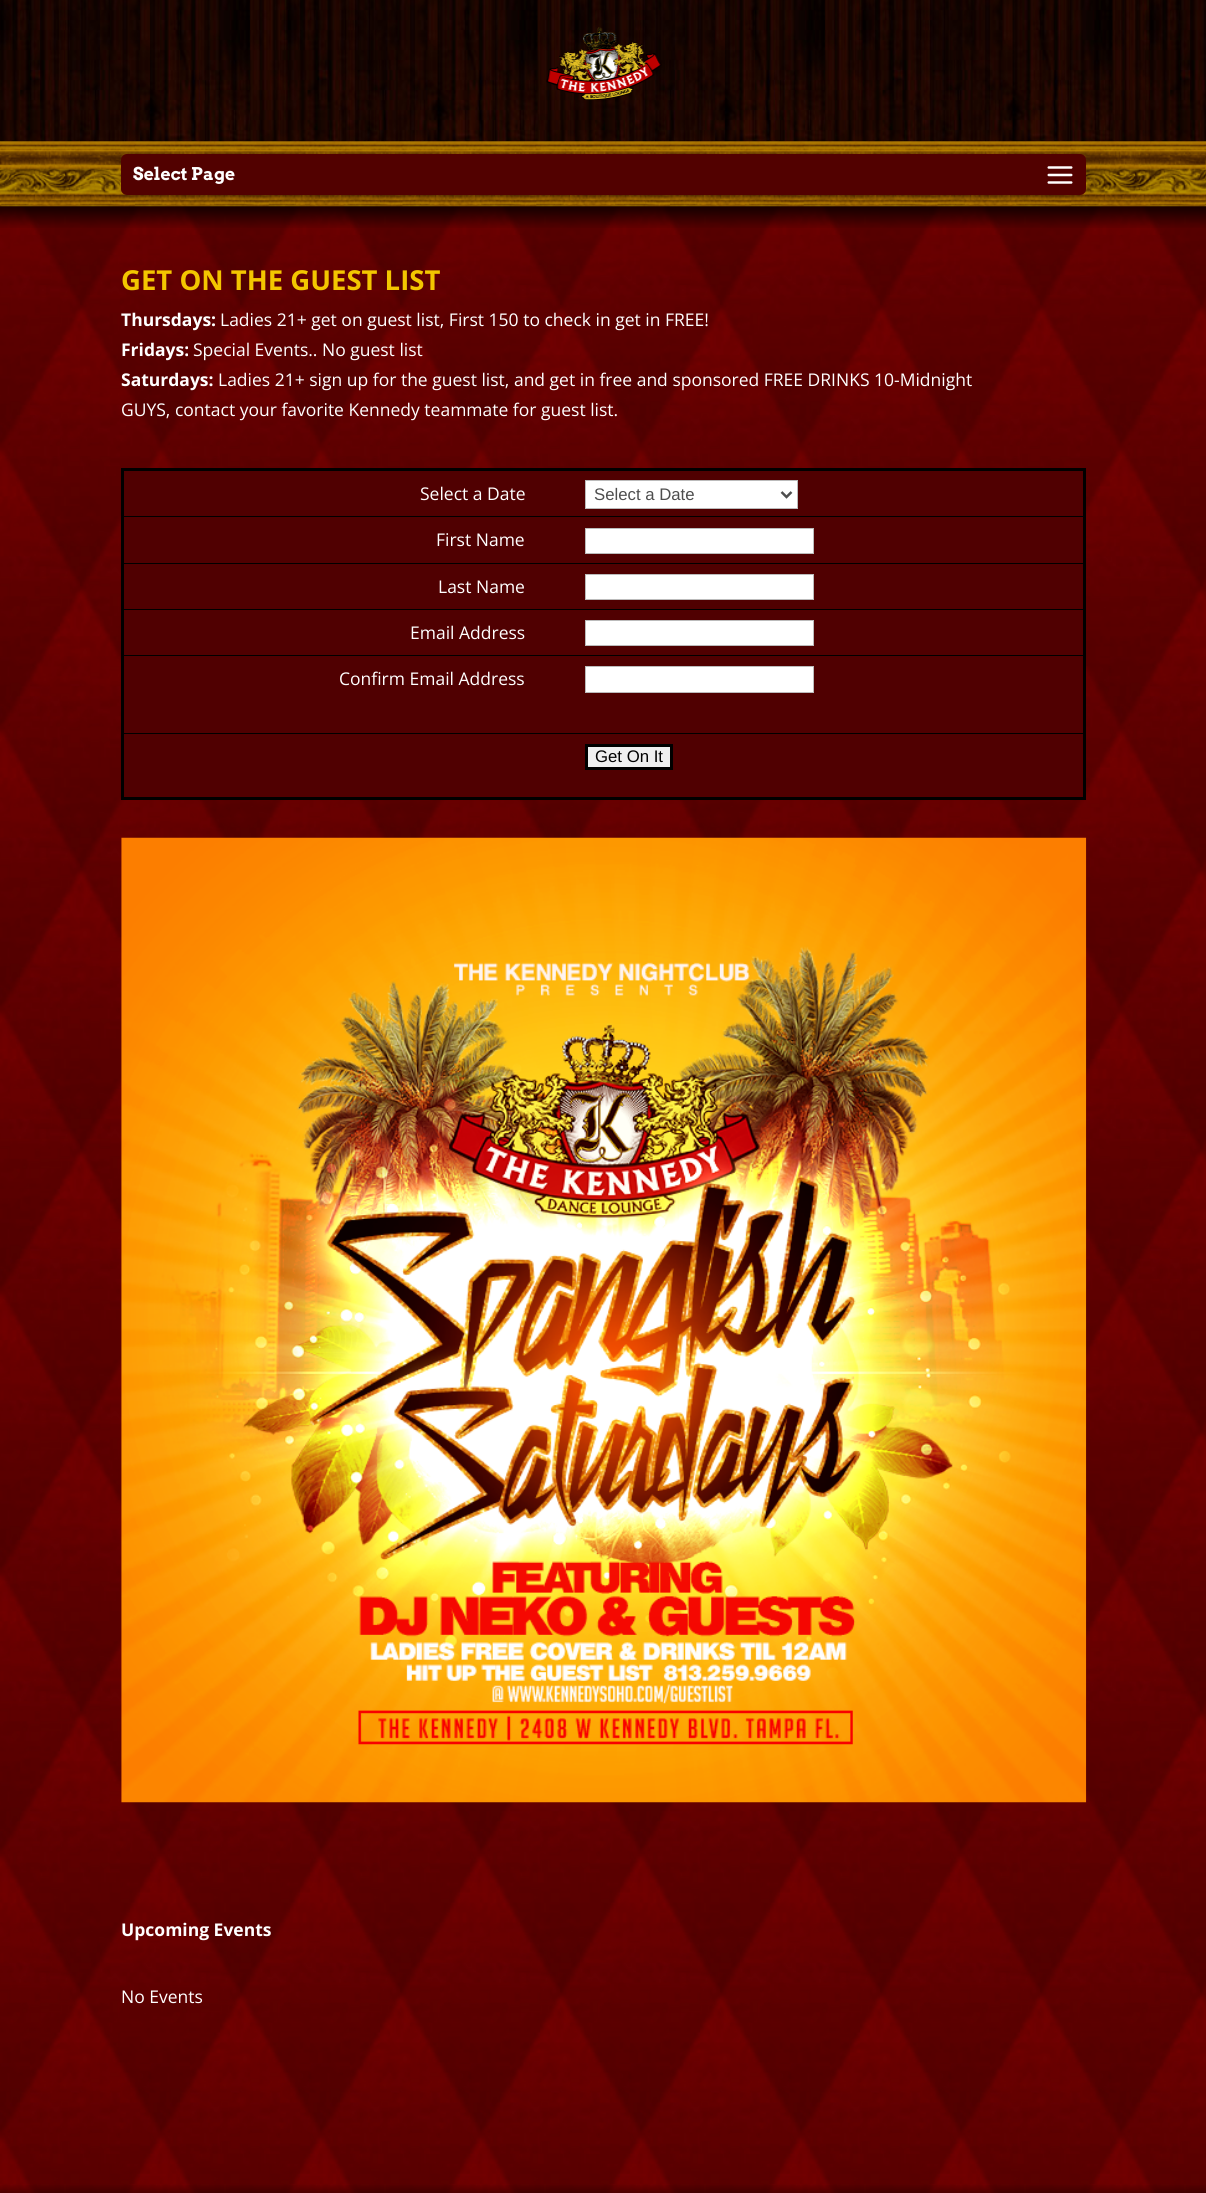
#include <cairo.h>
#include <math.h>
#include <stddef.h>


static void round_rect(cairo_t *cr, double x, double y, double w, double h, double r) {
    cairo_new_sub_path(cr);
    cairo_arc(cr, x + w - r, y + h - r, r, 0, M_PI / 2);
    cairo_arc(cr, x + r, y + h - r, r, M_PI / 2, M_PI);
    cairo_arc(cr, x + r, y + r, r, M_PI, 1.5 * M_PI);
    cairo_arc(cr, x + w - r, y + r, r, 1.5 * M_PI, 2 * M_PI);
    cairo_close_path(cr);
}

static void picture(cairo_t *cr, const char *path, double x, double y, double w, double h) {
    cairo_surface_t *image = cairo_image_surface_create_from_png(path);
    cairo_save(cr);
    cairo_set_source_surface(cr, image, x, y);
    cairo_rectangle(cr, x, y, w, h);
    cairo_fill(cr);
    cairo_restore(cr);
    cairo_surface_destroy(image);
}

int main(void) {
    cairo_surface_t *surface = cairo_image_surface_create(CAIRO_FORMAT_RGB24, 1206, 2193);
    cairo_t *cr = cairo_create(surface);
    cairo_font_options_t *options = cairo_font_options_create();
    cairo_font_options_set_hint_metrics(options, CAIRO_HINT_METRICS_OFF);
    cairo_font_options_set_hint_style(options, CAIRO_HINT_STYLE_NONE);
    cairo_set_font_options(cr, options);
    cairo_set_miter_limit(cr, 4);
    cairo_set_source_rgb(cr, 1, 1, 1);
    cairo_paint(cr);
    picture(cr, "img1.png", 0, 0, 1206, 142);
    picture(cr, "img5.png", 0, 206, 1206, 1987);
    picture(cr, "img2.png", 0, 141, 1206, 87);
    picture(cr, "img3.png", 546, 27, 116, 73);
    cairo_set_source_rgb(cr, 0.322, 0.004, 0);
    round_rect(cr, 121, 154, 965, 41, 6);
    cairo_fill(cr);
    cairo_select_font_face(cr, "Arvo", CAIRO_FONT_SLANT_NORMAL, CAIRO_FONT_WEIGHT_BOLD);
    cairo_set_font_size(cr, 17.5);
    cairo_set_source_rgb(cr, 1, 1, 1);
    cairo_move_to(cr, 133, 180);
    cairo_show_text(cr, "Select Page");
    picture(cr, "img4.png", 1047, 166, 26, 18);
    cairo_select_font_face(cr, "Open Sans", CAIRO_FONT_SLANT_NORMAL, CAIRO_FONT_WEIGHT_BOLD);
    cairo_set_font_size(cr, 27.5);
    cairo_set_source_rgb(cr, 0.953, 0.776, 0);
    cairo_move_to(cr, 121, 290);
    cairo_show_text(cr, "GET ON THE GUEST LIST");
    cairo_set_font_size(cr, 17.5);
    cairo_set_source_rgb(cr, 1, 1, 1);
    cairo_move_to(cr, 121, 326);
    cairo_show_text(cr, "Thursdays:");
    cairo_select_font_face(cr, "Open Sans", CAIRO_FONT_SLANT_NORMAL, CAIRO_FONT_WEIGHT_NORMAL);
    cairo_move_to(cr, 220, 326);
    cairo_show_text(cr, "Ladies 21+ get on guest list, First 150 to check in get in FREE!");
    cairo_select_font_face(cr, "Open Sans", CAIRO_FONT_SLANT_NORMAL, CAIRO_FONT_WEIGHT_BOLD);
    cairo_move_to(cr, 121, 356);
    cairo_show_text(cr, "Fridays:");
    cairo_select_font_face(cr, "Open Sans", CAIRO_FONT_SLANT_NORMAL, CAIRO_FONT_WEIGHT_NORMAL);
    cairo_move_to(cr, 193, 356);
    cairo_show_text(cr, "Special Events.. No guest list");
    cairo_select_font_face(cr, "Open Sans", CAIRO_FONT_SLANT_NORMAL, CAIRO_FONT_WEIGHT_BOLD);
    cairo_move_to(cr, 121, 386);
    cairo_show_text(cr, "Saturdays:");
    cairo_select_font_face(cr, "Open Sans", CAIRO_FONT_SLANT_NORMAL, CAIRO_FONT_WEIGHT_NORMAL);
    cairo_move_to(cr, 218, 386);
    cairo_show_text(cr, "Ladies 21+ sign up for the guest list, and get in free and sponsored FREE DRINKS 10-Midnight");
    cairo_move_to(cr, 121, 416);
    cairo_show_text(cr, "GUYS, contact your favorite Kennedy teammate for guest list.");
    cairo_set_source_rgb(cr, 0.314, 0, 0.004);
    cairo_rectangle(cr, 122.5, 469.5, 962, 329);
    cairo_fill_preserve(cr);
    cairo_set_source_rgb(cr, 0, 0, 0);
    cairo_set_line_width(cr, 3);
    cairo_stroke(cr);
    cairo_set_source_rgb(cr, 1, 1, 1);
    cairo_move_to(cr, 420, 500);
    cairo_show_text(cr, "Select a Date");
    cairo_rectangle(cr, 585.5, 480.5, 212, 28);
    cairo_fill_preserve(cr);
    cairo_set_source_rgb(cr, 0.733, 0.733, 0.733);
    cairo_set_line_width(cr, 1);
    cairo_stroke(cr);
    cairo_new_path(cr);
    cairo_move_to(cr, 781.5, 492);
    cairo_line_to(cr, 786.5, 497);
    cairo_line_to(cr, 791.5, 492);
    cairo_set_source_rgb(cr, 0.306, 0.306, 0.306);
    cairo_set_line_width(cr, 2.5);
    cairo_stroke(cr);
    cairo_select_font_face(cr, "Liberation Sans", CAIRO_FONT_SLANT_NORMAL, CAIRO_FONT_WEIGHT_NORMAL);
    cairo_set_font_size(cr, 16.75);
    cairo_move_to(cr, 594, 500);
    cairo_show_text(cr, "Select a Date");
    cairo_set_source_rgb(cr, 0, 0, 0);
    cairo_rectangle(cr, 123, 516, 961, 1);
    cairo_fill(cr);
    cairo_set_source_rgb(cr, 1, 1, 1);
    cairo_rectangle(cr, 585.5, 528.5, 228, 25);
    cairo_fill_preserve(cr);
    cairo_set_source_rgb(cr, 0.733, 0.733, 0.733);
    cairo_set_line_width(cr, 1);
    cairo_stroke(cr);
    cairo_select_font_face(cr, "Open Sans", CAIRO_FONT_SLANT_NORMAL, CAIRO_FONT_WEIGHT_NORMAL);
    cairo_set_font_size(cr, 17.5);
    cairo_set_source_rgb(cr, 1, 1, 1);
    cairo_move_to(cr, 436, 546);
    cairo_show_text(cr, "First Name");
    cairo_set_source_rgb(cr, 0, 0, 0);
    cairo_rectangle(cr, 123, 563, 961, 1);
    cairo_fill(cr);
    cairo_set_source_rgb(cr, 1, 1, 1);
    cairo_rectangle(cr, 585.5, 574.5, 228, 25);
    cairo_fill_preserve(cr);
    cairo_set_source_rgb(cr, 0.733, 0.733, 0.733);
    cairo_stroke(cr);
    cairo_set_source_rgb(cr, 1, 1, 1);
    cairo_move_to(cr, 438, 593);
    cairo_show_text(cr, "Last Name");
    cairo_set_source_rgb(cr, 0, 0, 0);
    cairo_rectangle(cr, 123, 609, 961, 1);
    cairo_fill(cr);
    cairo_set_source_rgb(cr, 1, 1, 1);
    cairo_rectangle(cr, 585.5, 620.5, 228, 25);
    cairo_fill_preserve(cr);
    cairo_set_source_rgb(cr, 0.733, 0.733, 0.733);
    cairo_stroke(cr);
    cairo_set_source_rgb(cr, 1, 1, 1);
    cairo_move_to(cr, 410, 639);
    cairo_show_text(cr, "Email Address");
    cairo_set_source_rgb(cr, 0, 0, 0);
    cairo_rectangle(cr, 123, 655, 961, 1);
    cairo_fill(cr);
    cairo_set_source_rgb(cr, 1, 1, 1);
    cairo_rectangle(cr, 585.5, 666.5, 228, 26);
    cairo_fill_preserve(cr);
    cairo_set_source_rgb(cr, 0.733, 0.733, 0.733);
    cairo_stroke(cr);
    cairo_set_source_rgb(cr, 1, 1, 1);
    cairo_move_to(cr, 339, 685);
    cairo_show_text(cr, "Confirm Email Address");
    cairo_set_source_rgb(cr, 0, 0, 0);
    cairo_rectangle(cr, 123, 733, 961, 1);
    cairo_fill(cr);
    cairo_set_source_rgb(cr, 0.937, 0.937, 0.937);
    cairo_rectangle(cr, 586.5, 745.5, 85, 23);
    cairo_fill_preserve(cr);
    cairo_set_source_rgb(cr, 0, 0, 0);
    cairo_set_line_width(cr, 3);
    cairo_stroke(cr);
    cairo_select_font_face(cr, "Liberation Sans", CAIRO_FONT_SLANT_NORMAL, CAIRO_FONT_WEIGHT_NORMAL);
    cairo_set_font_size(cr, 16.75);
    cairo_move_to(cr, 595, 762);
    cairo_show_text(cr, "Get On It");
    picture(cr, "img6.png", 121, 837, 966, 966);
    cairo_select_font_face(cr, "Open Sans", CAIRO_FONT_SLANT_NORMAL, CAIRO_FONT_WEIGHT_BOLD);
    cairo_set_font_size(cr, 17.5);
    cairo_set_source_rgb(cr, 1, 1, 1);
    cairo_move_to(cr, 121, 1936);
    cairo_show_text(cr, "Upcoming Events");
    cairo_select_font_face(cr, "Open Sans", CAIRO_FONT_SLANT_NORMAL, CAIRO_FONT_WEIGHT_NORMAL);
    cairo_move_to(cr, 121, 2003);
    cairo_show_text(cr, "No Events");
    picture(cr, "img7.png", 0, 2185, 1206, 8);
    cairo_surface_write_to_png(surface, "page.png");
    cairo_font_options_destroy(options);
    cairo_destroy(cr);
    cairo_surface_destroy(surface);
    return 0;
}
